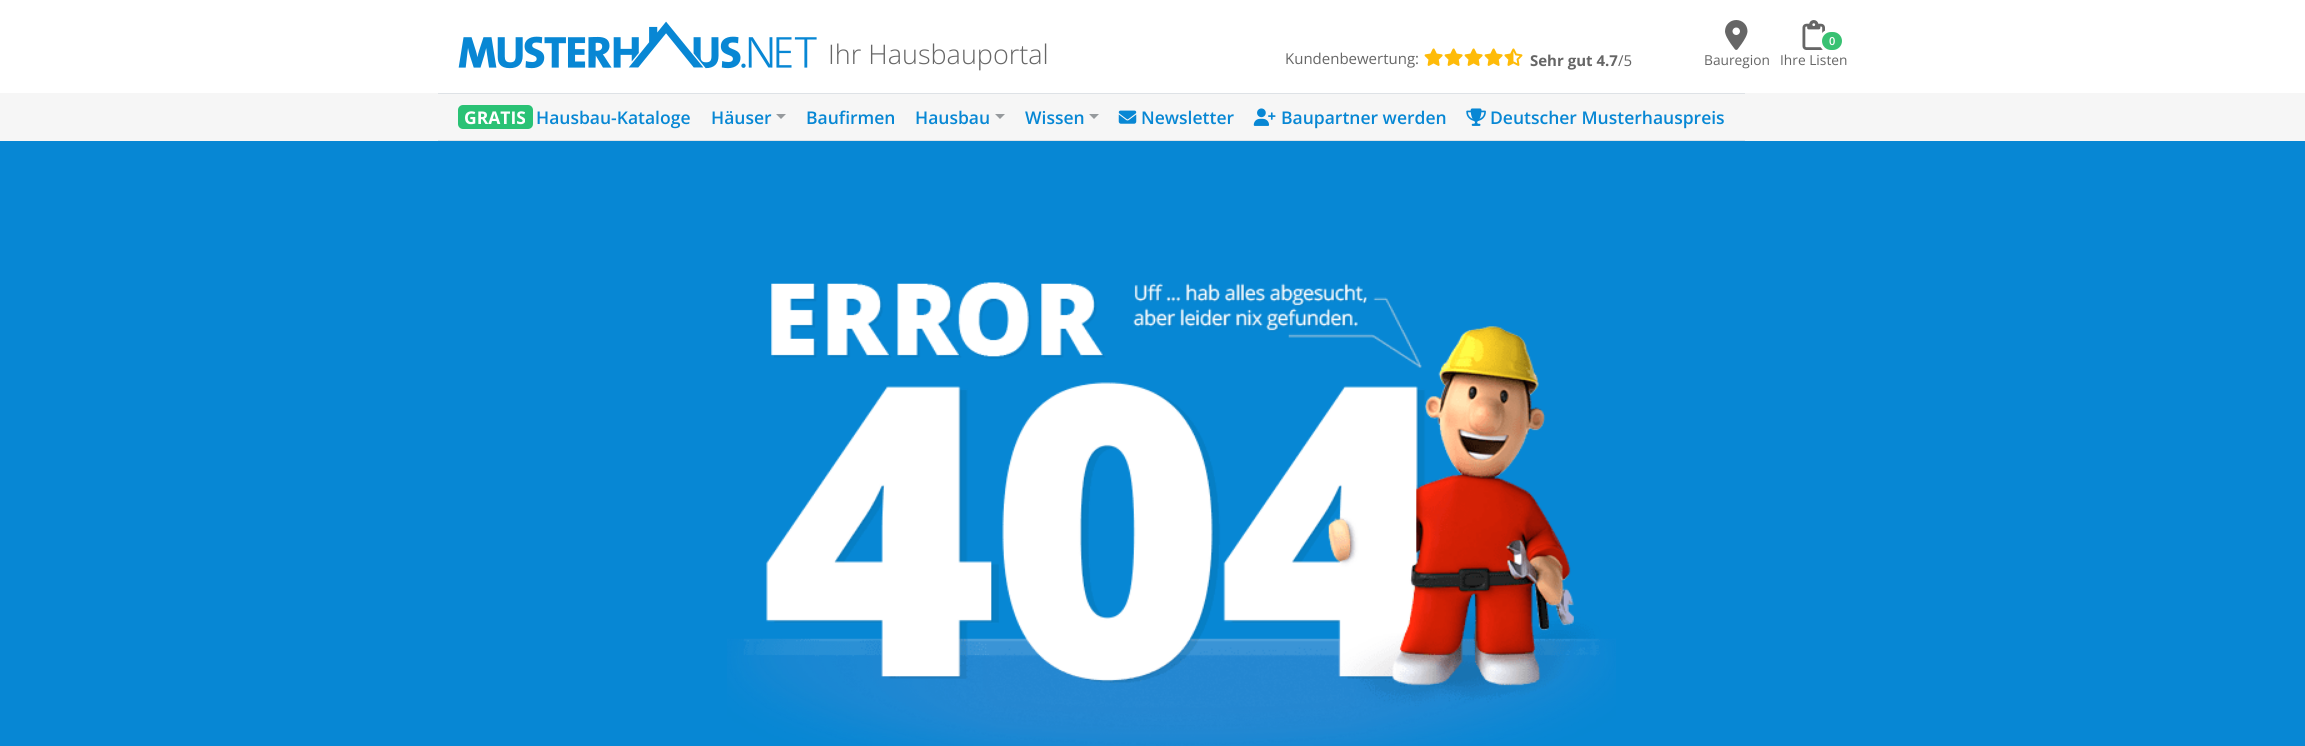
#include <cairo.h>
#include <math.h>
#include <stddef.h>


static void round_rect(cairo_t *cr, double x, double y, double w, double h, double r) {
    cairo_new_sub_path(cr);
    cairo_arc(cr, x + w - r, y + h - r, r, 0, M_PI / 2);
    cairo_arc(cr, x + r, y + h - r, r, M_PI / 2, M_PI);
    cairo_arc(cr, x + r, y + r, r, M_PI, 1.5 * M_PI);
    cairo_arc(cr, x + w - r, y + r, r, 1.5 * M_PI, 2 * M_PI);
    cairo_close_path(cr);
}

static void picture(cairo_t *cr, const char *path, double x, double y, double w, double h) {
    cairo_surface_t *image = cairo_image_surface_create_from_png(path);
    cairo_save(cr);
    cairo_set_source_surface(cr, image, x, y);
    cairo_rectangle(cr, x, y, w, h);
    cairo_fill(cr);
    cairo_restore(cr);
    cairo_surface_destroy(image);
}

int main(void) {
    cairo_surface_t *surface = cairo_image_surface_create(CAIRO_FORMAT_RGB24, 2305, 746);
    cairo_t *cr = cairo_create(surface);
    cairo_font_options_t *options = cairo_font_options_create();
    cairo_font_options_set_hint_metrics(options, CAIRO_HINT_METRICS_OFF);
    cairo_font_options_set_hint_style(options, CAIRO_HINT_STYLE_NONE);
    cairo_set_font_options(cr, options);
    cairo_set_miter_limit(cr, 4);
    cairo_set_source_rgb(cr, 1, 1, 1);
    cairo_paint(cr);
    picture(cr, "img1.png", 458, 21, 359, 48);
    cairo_select_font_face(cr, "Open Sans Light", CAIRO_FONT_SLANT_NORMAL, CAIRO_FONT_WEIGHT_NORMAL);
    cairo_set_font_size(cr, 27);
    cairo_set_source_rgb(cr, 0.4, 0.4, 0.4);
    cairo_move_to(cr, 828, 64);
    cairo_show_text(cr, "Ihr Hausbauportal");
    cairo_select_font_face(cr, "Open Sans", CAIRO_FONT_SLANT_NORMAL, CAIRO_FONT_WEIGHT_NORMAL);
    cairo_set_font_size(cr, 15);
    cairo_move_to(cr, 1285, 64);
    cairo_show_text(cr, "Kundenbewertung:");
    picture(cr, "img2.png", 1424, 48, 19, 18);
    picture(cr, "img2.png", 1444, 48, 19, 18);
    picture(cr, "img2.png", 1464, 48, 19, 18);
    picture(cr, "img2.png", 1484, 48, 19, 18);
    picture(cr, "img3.png", 1504, 48, 19, 18);
    cairo_select_font_face(cr, "Open Sans", CAIRO_FONT_SLANT_NORMAL, CAIRO_FONT_WEIGHT_BOLD);
    cairo_move_to(cr, 1530, 66);
    cairo_show_text(cr, "Sehr gut 4.7");
    cairo_select_font_face(cr, "Open Sans", CAIRO_FONT_SLANT_NORMAL, CAIRO_FONT_WEIGHT_NORMAL);
    cairo_move_to(cr, 1618, 66);
    cairo_show_text(cr, "/5");
    picture(cr, "img4.png", 1725, 20, 23, 30);
    cairo_set_font_size(cr, 13.75);
    cairo_move_to(cr, 1704, 65);
    cairo_show_text(cr, "Bauregion");
    picture(cr, "img5.png", 1802, 20, 23, 30);
    cairo_set_source_rgb(cr, 0.22, 0.757, 0.447);
    round_rect(cr, 1820.5, 30.5, 23, 21, 10.5);
    cairo_fill_preserve(cr);
    cairo_set_source_rgb(cr, 1, 1, 1);
    cairo_set_line_width(cr, 3);
    cairo_stroke(cr);
    cairo_select_font_face(cr, "Open Sans SemiBold", CAIRO_FONT_SLANT_NORMAL, CAIRO_FONT_WEIGHT_NORMAL);
    cairo_set_font_size(cr, 11);
    cairo_move_to(cr, 1829, 45);
    cairo_show_text(cr, "0");
    cairo_select_font_face(cr, "Open Sans", CAIRO_FONT_SLANT_NORMAL, CAIRO_FONT_WEIGHT_NORMAL);
    cairo_set_font_size(cr, 13.75);
    cairo_set_source_rgb(cr, 0.4, 0.4, 0.4);
    cairo_move_to(cr, 1780, 65);
    cairo_show_text(cr, "Ihre Listen");
    cairo_set_source_rgb(cr, 0.961, 0.961, 0.961);
    cairo_rectangle(cr, 0, 93, 2305, 48);
    cairo_fill(cr);
    cairo_set_source_rgb(cr, 0.871, 0.886, 0.902);
    cairo_rectangle(cr, 438, 93, 1307, 1);
    cairo_fill(cr);
    cairo_rectangle(cr, 438, 140, 1307, 1);
    cairo_fill(cr);
    cairo_set_source_rgb(cr, 0.165, 0.761, 0.459);
    round_rect(cr, 458, 105, 75, 24, 5);
    cairo_fill(cr);
    cairo_select_font_face(cr, "Open Sans", CAIRO_FONT_SLANT_NORMAL, CAIRO_FONT_WEIGHT_BOLD);
    cairo_set_font_size(cr, 17.5);
    cairo_set_source_rgb(cr, 1, 1, 1);
    cairo_move_to(cr, 464, 124);
    cairo_show_text(cr, "GRATIS");
    cairo_select_font_face(cr, "Open Sans SemiBold", CAIRO_FONT_SLANT_NORMAL, CAIRO_FONT_WEIGHT_NORMAL);
    cairo_set_source_rgb(cr, 0.031, 0.529, 0.831);
    cairo_move_to(cr, 536, 124);
    cairo_show_text(cr, "Hausbau-Kataloge");
    cairo_move_to(cr, 711, 124);
    cairo_show_text(cr, "Häuser");
    cairo_set_source_rgb(cr, 0.588, 0.604, 0.616);
    cairo_new_path(cr);
    cairo_move_to(cr, 776, 114);
    cairo_line_to(cr, 786, 114);
    cairo_line_to(cr, 781, 119);
    cairo_close_path(cr);
    cairo_fill(cr);
    cairo_set_source_rgb(cr, 0.031, 0.529, 0.831);
    cairo_move_to(cr, 806, 124);
    cairo_show_text(cr, "Baufirmen");
    cairo_move_to(cr, 915, 124);
    cairo_show_text(cr, "Hausbau");
    cairo_set_source_rgb(cr, 0.588, 0.604, 0.616);
    cairo_new_path(cr);
    cairo_move_to(cr, 995, 114);
    cairo_line_to(cr, 1005, 114);
    cairo_line_to(cr, 1000, 119);
    cairo_close_path(cr);
    cairo_fill(cr);
    cairo_set_source_rgb(cr, 0.031, 0.529, 0.831);
    cairo_move_to(cr, 1025, 124);
    cairo_show_text(cr, "Wissen");
    cairo_set_source_rgb(cr, 0.588, 0.604, 0.616);
    cairo_new_path(cr);
    cairo_move_to(cr, 1089, 114);
    cairo_line_to(cr, 1099, 114);
    cairo_line_to(cr, 1094, 119);
    cairo_close_path(cr);
    cairo_fill(cr);
    picture(cr, "img6.png", 1118, 110, 19, 14);
    cairo_set_source_rgb(cr, 0.031, 0.529, 0.831);
    cairo_move_to(cr, 1141, 124);
    cairo_show_text(cr, "Newsletter");
    picture(cr, "img7.png", 1253, 108, 23, 18);
    cairo_move_to(cr, 1281, 124);
    cairo_show_text(cr, "Baupartner werden");
    picture(cr, "img8.png", 1466, 108, 20, 18);
    cairo_move_to(cr, 1490, 124);
    cairo_show_text(cr, "Deutscher Musterhauspreis");
    cairo_rectangle(cr, 0, 141, 2305, 605);
    cairo_fill(cr);
    picture(cr, "img9.png", 727, 282, 889, 464);
    cairo_surface_write_to_png(surface, "page.png");
    cairo_font_options_destroy(options);
    cairo_destroy(cr);
    cairo_surface_destroy(surface);
    return 0;
}
